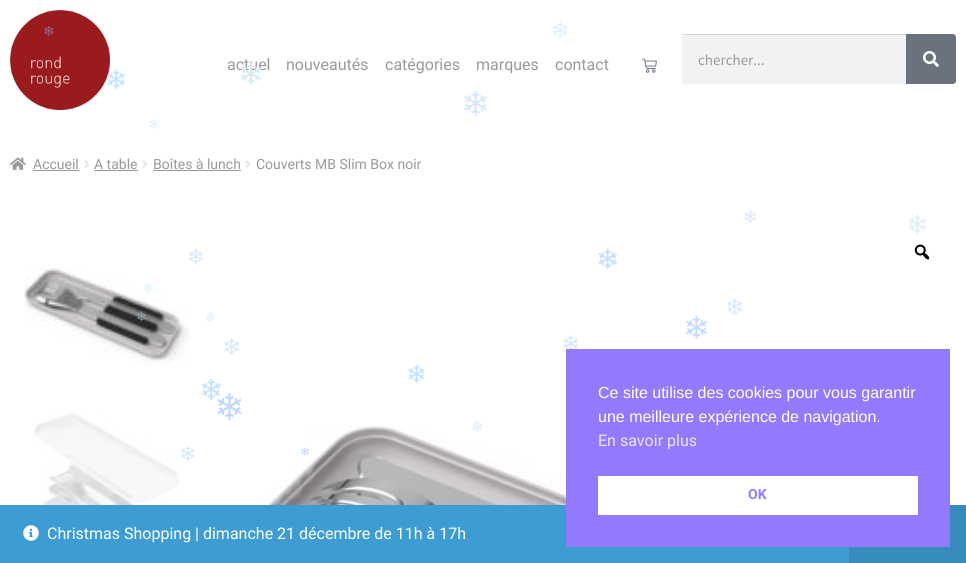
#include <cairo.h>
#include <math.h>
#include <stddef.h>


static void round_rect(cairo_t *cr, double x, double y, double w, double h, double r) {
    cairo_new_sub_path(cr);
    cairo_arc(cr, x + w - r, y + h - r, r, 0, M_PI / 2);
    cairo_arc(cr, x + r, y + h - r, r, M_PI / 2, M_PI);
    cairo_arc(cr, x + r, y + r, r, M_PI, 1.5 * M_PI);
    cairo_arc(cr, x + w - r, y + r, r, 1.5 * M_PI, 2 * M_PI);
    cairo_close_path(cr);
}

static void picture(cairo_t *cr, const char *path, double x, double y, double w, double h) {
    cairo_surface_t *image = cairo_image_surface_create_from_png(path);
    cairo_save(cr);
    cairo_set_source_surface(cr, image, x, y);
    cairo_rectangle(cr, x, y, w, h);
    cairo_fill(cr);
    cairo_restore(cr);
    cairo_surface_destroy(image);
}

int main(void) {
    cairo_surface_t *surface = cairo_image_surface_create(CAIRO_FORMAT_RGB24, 966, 563);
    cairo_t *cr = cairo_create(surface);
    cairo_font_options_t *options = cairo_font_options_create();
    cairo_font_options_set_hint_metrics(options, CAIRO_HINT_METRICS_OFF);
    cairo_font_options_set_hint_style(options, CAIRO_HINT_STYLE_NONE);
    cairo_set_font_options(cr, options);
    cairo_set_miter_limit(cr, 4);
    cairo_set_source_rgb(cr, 1, 1, 1);
    cairo_paint(cr);
    picture(cr, "img1.png", 10, 10, 100, 100);
    cairo_select_font_face(cr, "DejaVu Sans", CAIRO_FONT_SLANT_NORMAL, CAIRO_FONT_WEIGHT_NORMAL);
    cairo_set_font_size(cr, 14);
    cairo_set_source_rgb(cr, 0.573, 0.408, 0.561);
    cairo_move_to(cr, 43, 36);
    cairo_show_text(cr, "❄");
    cairo_set_font_size(cr, 22);
    cairo_set_source_rgb(cr, 0.863, 0.941, 0.98);
    cairo_move_to(cr, 551, 38);
    cairo_show_text(cr, "❄");
    cairo_select_font_face(cr, "Roboto", CAIRO_FONT_SLANT_NORMAL, CAIRO_FONT_WEIGHT_NORMAL);
    cairo_set_font_size(cr, 16);
    cairo_set_source_rgb(cr, 0.6, 0.6, 0.6);
    cairo_move_to(cr, 227, 70);
    cairo_show_text(cr, "actuel");
    cairo_move_to(cr, 286, 70);
    cairo_show_text(cr, "nouveautés");
    cairo_move_to(cr, 385, 70);
    cairo_show_text(cr, "catégories");
    cairo_move_to(cr, 476, 70);
    cairo_show_text(cr, "marques");
    cairo_move_to(cr, 555, 70);
    cairo_show_text(cr, "contact");
    picture(cr, "img2.png", 642, 58, 15, 15);
    cairo_set_source_rgb(cr, 0.945, 0.949, 0.953);
    round_rect(cr, 682, 34, 274, 50, 3);
    cairo_fill(cr);
    cairo_set_source_rgba(cr, 0, 0, 0, 0.12);
    cairo_rectangle(cr, 682, 34, 224, 1);
    cairo_fill(cr);
    cairo_select_font_face(cr, "Source Sans Pro", CAIRO_FONT_SLANT_NORMAL, CAIRO_FONT_WEIGHT_NORMAL);
    cairo_set_font_size(cr, 15);
    cairo_set_source_rgb(cr, 0.6, 0.6, 0.6);
    cairo_move_to(cr, 698, 65);
    cairo_show_text(cr, "chercher...");
    cairo_set_source_rgb(cr, 0.412, 0.447, 0.49);
    cairo_new_path(cr);
    cairo_move_to(cr, 906, 34);
    cairo_line_to(cr, 953, 34);
    cairo_curve_to(cr, 954.5, 34, 956, 35.5, 956, 37);
    cairo_line_to(cr, 956, 81);
    cairo_curve_to(cr, 956, 82.5, 954.5, 84, 953, 84);
    cairo_line_to(cr, 906, 84);
    cairo_close_path(cr);
    cairo_fill(cr);
    picture(cr, "img3.png", 923, 51, 16, 16);
    cairo_select_font_face(cr, "DejaVu Sans", CAIRO_FONT_SLANT_NORMAL, CAIRO_FONT_WEIGHT_NORMAL);
    cairo_set_font_size(cr, 27);
    cairo_set_source_rgb(cr, 0.749, 0.894, 1);
    cairo_move_to(cr, 105, 89);
    cairo_show_text(cr, "❄");
    cairo_set_font_size(cr, 31);
    cairo_set_source_rgb(cr, 0.839, 0.918, 0.957);
    cairo_move_to(cr, 238, 85);
    cairo_show_text(cr, "❄");
    cairo_set_font_size(cr, 35);
    cairo_set_source_rgb(cr, 0.843, 0.91, 0.98);
    cairo_move_to(cr, 461, 116);
    cairo_show_text(cr, "❄");
    cairo_set_font_size(cr, 14);
    cairo_set_source_rgb(cr, 0.863, 0.941, 0.98);
    cairo_move_to(cr, 148, 129);
    cairo_show_text(cr, "❄");
    picture(cr, "img4.png", 10, 157, 16, 13);
    cairo_select_font_face(cr, "Roboto", CAIRO_FONT_SLANT_NORMAL, CAIRO_FONT_WEIGHT_NORMAL);
    cairo_set_source_rgb(cr, 0.6, 0.6, 0.6);
    cairo_move_to(cr, 33, 169);
    cairo_show_text(cr, "Accueil");
    cairo_rectangle(cr, 33, 170, 46, 1);
    cairo_fill(cr);
    picture(cr, "img5.png", 84, 160, 6, 8);
    cairo_move_to(cr, 94, 169);
    cairo_show_text(cr, "A table");
    cairo_rectangle(cr, 94, 170, 44, 1);
    cairo_fill(cr);
    picture(cr, "img5.png", 142, 160, 6, 8);
    cairo_move_to(cr, 153, 169);
    cairo_show_text(cr, "Boîtes à lunch");
    cairo_rectangle(cr, 153, 170, 88, 1);
    cairo_fill(cr);
    picture(cr, "img5.png", 245, 160, 6, 8);
    cairo_move_to(cr, 256, 169);
    cairo_show_text(cr, "Couverts MB Slim Box noir");
    picture(cr, "img6.png", 24, 265, 166, 101);
    picture(cr, "img7.png", 34, 414, 146, 91);
    picture(cr, "img8.png", 914, 244, 16, 16);
    picture(cr, "img9.png", 259, 425, 307, 80);
    cairo_select_font_face(cr, "DejaVu Sans", CAIRO_FONT_SLANT_NORMAL, CAIRO_FONT_WEIGHT_NORMAL);
    cairo_set_font_size(cr, 18);
    cairo_set_source_rgb(cr, 0.843, 0.91, 0.98);
    cairo_move_to(cr, 743, 223);
    cairo_show_text(cr, "❄");
    cairo_set_font_size(cr, 27);
    cairo_set_source_rgb(cr, 0.863, 0.941, 0.98);
    cairo_move_to(cr, 906, 234);
    cairo_show_text(cr, "❄");
    cairo_set_font_size(cr, 21);
    cairo_set_source_rgb(cr, 0.843, 0.91, 0.98);
    cairo_move_to(cr, 187, 264);
    cairo_show_text(cr, "❄");
    cairo_set_font_size(cr, 28);
    cairo_set_source_rgb(cr, 0.773, 0.855, 1);
    cairo_move_to(cr, 596, 269);
    cairo_show_text(cr, "❄");
    cairo_set_font_size(cr, 13);
    cairo_set_source_rgb(cr, 0.863, 0.941, 0.98);
    cairo_move_to(cr, 143, 292);
    cairo_show_text(cr, "❄");
    cairo_set_font_size(cr, 23);
    cairo_set_source_rgb(cr, 0.843, 0.91, 0.98);
    cairo_move_to(cr, 725, 315);
    cairo_show_text(cr, "❄");
    cairo_set_font_size(cr, 13);
    cairo_set_source_rgb(cr, 0.545, 0.612, 0.682);
    cairo_move_to(cr, 136, 321);
    cairo_show_text(cr, "❄");
    cairo_set_source_rgb(cr, 0.863, 0.941, 0.98);
    cairo_move_to(cr, 205, 322);
    cairo_show_text(cr, "❄");
    cairo_set_font_size(cr, 32);
    cairo_set_source_rgb(cr, 0.773, 0.855, 1);
    cairo_move_to(cr, 683, 339);
    cairo_show_text(cr, "❄");
    cairo_set_font_size(cr, 23);
    cairo_set_source_rgb(cr, 0.843, 0.91, 0.98);
    cairo_move_to(cr, 222, 355);
    cairo_show_text(cr, "❄");
    cairo_move_to(cr, 561, 352);
    cairo_show_text(cr, "❄");
    cairo_set_font_size(cr, 25);
    cairo_set_source_rgb(cr, 0.749, 0.894, 1);
    cairo_move_to(cr, 406, 383);
    cairo_show_text(cr, "❄");
    cairo_set_font_size(cr, 29);
    cairo_move_to(cr, 199, 400);
    cairo_show_text(cr, "❄");
    cairo_set_font_size(cr, 37);
    cairo_set_source_rgb(cr, 0.749, 0.847, 1);
    cairo_move_to(cr, 214, 420);
    cairo_show_text(cr, "❄");
    cairo_set_source_rgb(cr, 0.239, 0.612, 0.824);
    cairo_rectangle(cr, 0, 505, 849, 58);
    cairo_fill(cr);
    cairo_set_source_rgb(cr, 0.216, 0.549, 0.741);
    cairo_rectangle(cr, 849, 505, 117, 58);
    cairo_fill(cr);
    cairo_set_source_rgb(cr, 0.576, 0.478, 0.988);
    cairo_rectangle(cr, 566, 349, 384, 198);
    cairo_fill(cr);
    cairo_select_font_face(cr, "Liberation Sans", CAIRO_FONT_SLANT_NORMAL, CAIRO_FONT_WEIGHT_NORMAL);
    cairo_set_font_size(cr, 16);
    cairo_set_source_rgb(cr, 1, 1, 1);
    cairo_move_to(cr, 598, 398);
    cairo_show_text(cr, "Ce site utilise des cookies pour vous garantir");
    cairo_move_to(cr, 598, 422);
    cairo_show_text(cr, "une meilleure expérience de navigation.");
    cairo_select_font_face(cr, "Roboto", CAIRO_FONT_SLANT_NORMAL, CAIRO_FONT_WEIGHT_NORMAL);
    cairo_set_source_rgb(cr, 0.914, 0.894, 0.996);
    cairo_move_to(cr, 598, 446);
    cairo_show_text(cr, "En savoir plus");
    cairo_set_source_rgb(cr, 1, 1, 1);
    cairo_rectangle(cr, 598, 476, 320, 39);
    cairo_fill(cr);
    cairo_select_font_face(cr, "Roboto", CAIRO_FONT_SLANT_NORMAL, CAIRO_FONT_WEIGHT_BOLD);
    cairo_set_font_size(cr, 14);
    cairo_set_source_rgb(cr, 0.576, 0.478, 0.988);
    cairo_move_to(cr, 748, 499);
    cairo_show_text(cr, "OK");
    cairo_select_font_face(cr, "DejaVu Sans", CAIRO_FONT_SLANT_NORMAL, CAIRO_FONT_WEIGHT_NORMAL);
    cairo_set_font_size(cr, 15);
    cairo_set_source_rgb(cr, 0.863, 0.941, 0.98);
    cairo_move_to(cr, 471, 432);
    cairo_show_text(cr, "❄");
    cairo_set_font_size(cr, 21);
    cairo_set_source_rgb(cr, 0.843, 0.91, 0.98);
    cairo_move_to(cr, 179, 461);
    cairo_show_text(cr, "❄");
    cairo_set_font_size(cr, 12);
    cairo_set_source_rgb(cr, 0.749, 0.847, 1);
    cairo_move_to(cr, 300, 456);
    cairo_show_text(cr, "❄");
    picture(cr, "img10.png", 23, 525, 16, 16);
    cairo_select_font_face(cr, "Roboto", CAIRO_FONT_SLANT_NORMAL, CAIRO_FONT_WEIGHT_NORMAL);
    cairo_set_font_size(cr, 16);
    cairo_set_source_rgb(cr, 1, 1, 1);
    cairo_move_to(cr, 47, 539);
    cairo_show_text(cr, "Christmas Shopping | dimanche 21 décembre de 11h à 17h");
    cairo_surface_write_to_png(surface, "page.png");
    cairo_font_options_destroy(options);
    cairo_destroy(cr);
    cairo_surface_destroy(surface);
    return 0;
}
